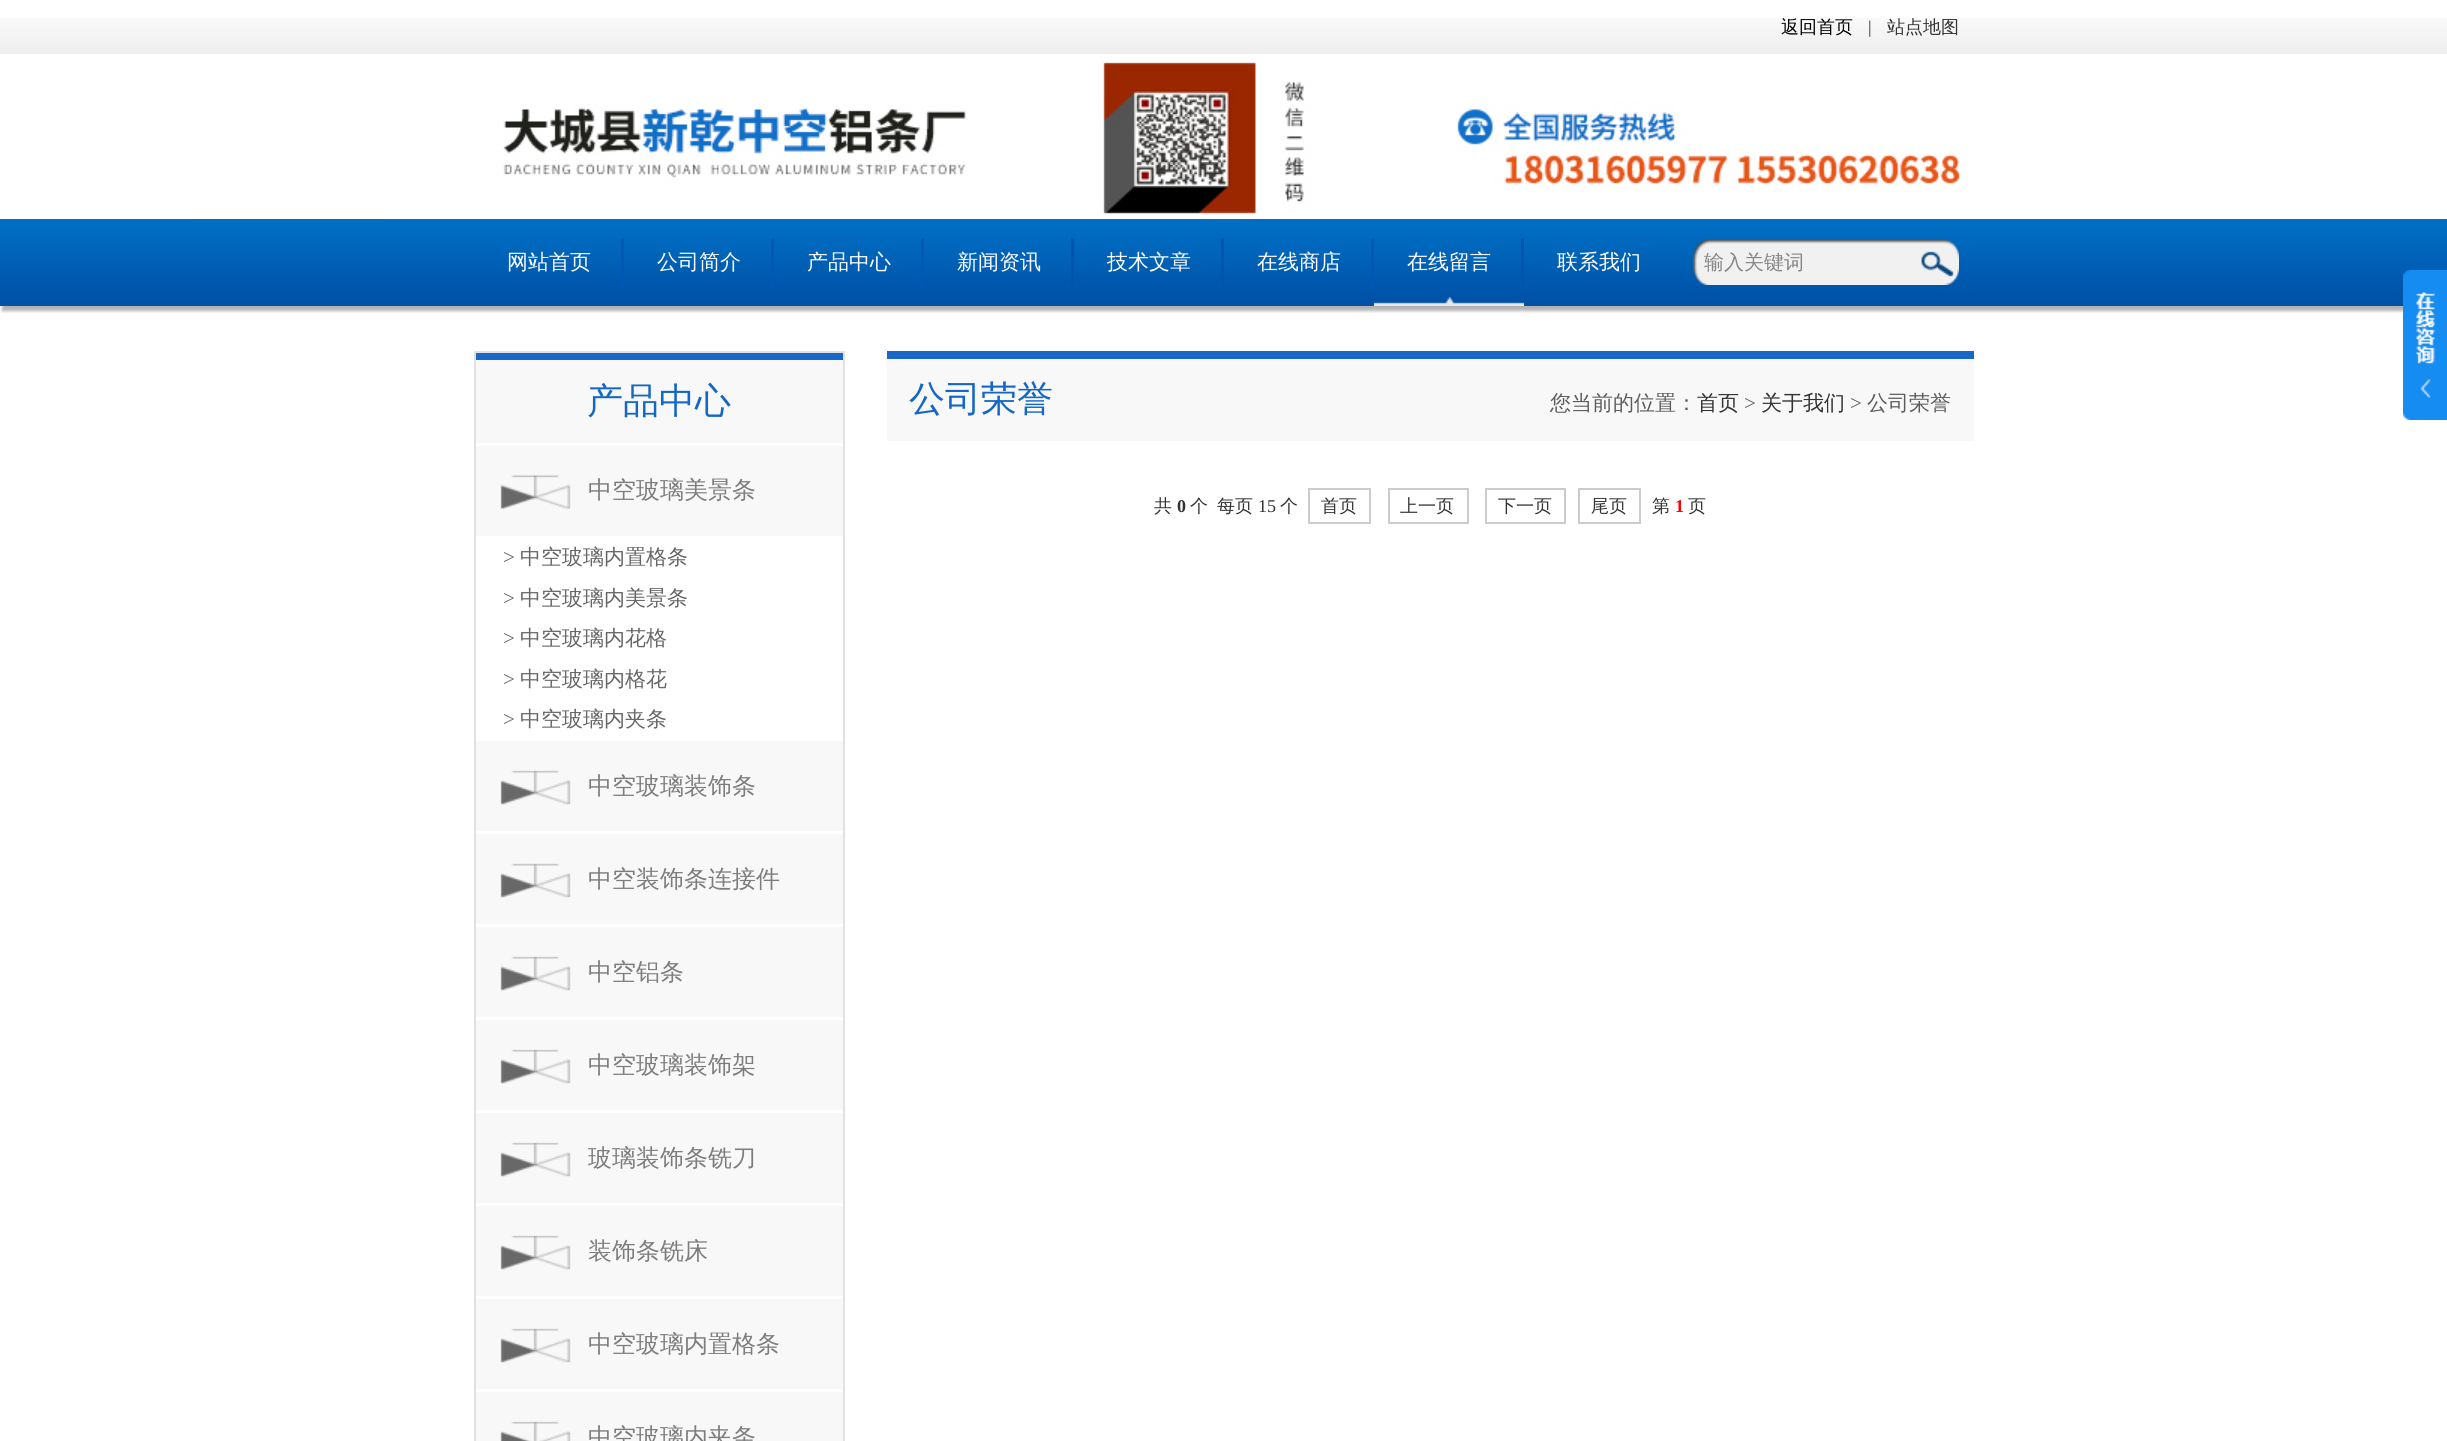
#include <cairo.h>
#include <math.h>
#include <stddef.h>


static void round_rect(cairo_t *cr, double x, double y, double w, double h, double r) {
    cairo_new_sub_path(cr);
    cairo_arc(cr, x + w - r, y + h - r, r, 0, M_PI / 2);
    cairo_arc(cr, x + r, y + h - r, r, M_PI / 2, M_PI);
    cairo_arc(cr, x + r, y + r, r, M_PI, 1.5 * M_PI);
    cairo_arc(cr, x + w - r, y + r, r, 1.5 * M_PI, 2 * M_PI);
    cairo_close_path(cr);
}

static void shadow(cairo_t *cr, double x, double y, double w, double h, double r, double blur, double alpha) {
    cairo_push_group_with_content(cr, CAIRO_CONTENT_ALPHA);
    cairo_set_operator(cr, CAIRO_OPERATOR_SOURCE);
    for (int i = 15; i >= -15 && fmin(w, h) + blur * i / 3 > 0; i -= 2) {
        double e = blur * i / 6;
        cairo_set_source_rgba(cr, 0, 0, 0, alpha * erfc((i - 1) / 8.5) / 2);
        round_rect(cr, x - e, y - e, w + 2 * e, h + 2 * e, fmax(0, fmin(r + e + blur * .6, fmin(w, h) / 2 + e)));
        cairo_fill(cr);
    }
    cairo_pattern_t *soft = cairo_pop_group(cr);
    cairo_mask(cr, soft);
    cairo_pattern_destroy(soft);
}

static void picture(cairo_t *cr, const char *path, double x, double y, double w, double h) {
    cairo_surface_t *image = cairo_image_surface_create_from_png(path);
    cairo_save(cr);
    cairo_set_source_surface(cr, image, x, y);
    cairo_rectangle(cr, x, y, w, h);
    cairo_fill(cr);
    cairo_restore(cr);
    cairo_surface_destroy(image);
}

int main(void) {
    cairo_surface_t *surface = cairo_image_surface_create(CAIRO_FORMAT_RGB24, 2447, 1441);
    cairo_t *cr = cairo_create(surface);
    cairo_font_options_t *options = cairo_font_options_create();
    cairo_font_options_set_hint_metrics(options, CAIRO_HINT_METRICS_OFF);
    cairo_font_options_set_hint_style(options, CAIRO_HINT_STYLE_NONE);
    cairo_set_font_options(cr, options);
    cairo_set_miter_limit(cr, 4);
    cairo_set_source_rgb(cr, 1, 1, 1);
    cairo_paint(cr);
    picture(cr, "img1.png", 0, 18, 2447, 36);
    cairo_select_font_face(cr, "WenQuanYi Zen Hei Medium", CAIRO_FONT_SLANT_NORMAL, CAIRO_FONT_WEIGHT_NORMAL);
    cairo_set_font_size(cr, 18);
    cairo_set_source_rgb(cr, 0, 0, 0);
    cairo_move_to(cr, 1781, 33);
    cairo_show_text(cr, "返回首页");
    cairo_select_font_face(cr, "Liberation Serif", CAIRO_FONT_SLANT_NORMAL, CAIRO_FONT_WEIGHT_NORMAL);
    cairo_set_source_rgb(cr, 0.2, 0.2, 0.2);
    cairo_move_to(cr, 1868, 33);
    cairo_show_text(cr, "|");
    cairo_select_font_face(cr, "WenQuanYi Zen Hei Medium", CAIRO_FONT_SLANT_NORMAL, CAIRO_FONT_WEIGHT_NORMAL);
    cairo_move_to(cr, 1887, 33);
    cairo_show_text(cr, "站点地图");
    picture(cr, "img2.png", 503, 62, 1457, 152);
    cairo_set_source_rgb(cr, 0, 0, 0);
    shadow(cr, 2, 227, 2445, 84, 0, 1.5, 0.3);
    picture(cr, "img3.png", 0, 219, 2447, 87);
    cairo_set_source_rgb(cr, 0.004, 0.341, 0.71);
    cairo_rectangle(cr, 621, 238, 3, 50);
    cairo_fill(cr);
    cairo_set_font_size(cr, 21);
    cairo_set_source_rgb(cr, 1, 1, 1);
    cairo_move_to(cr, 507, 269);
    cairo_show_text(cr, "网站首页");
    cairo_set_source_rgb(cr, 0.004, 0.341, 0.71);
    cairo_rectangle(cr, 771, 238, 3, 50);
    cairo_fill(cr);
    cairo_set_source_rgb(cr, 1, 1, 1);
    cairo_move_to(cr, 657, 269);
    cairo_show_text(cr, "公司简介");
    cairo_set_source_rgb(cr, 0.004, 0.341, 0.71);
    cairo_rectangle(cr, 921, 238, 3, 50);
    cairo_fill(cr);
    cairo_set_source_rgb(cr, 1, 1, 1);
    cairo_move_to(cr, 807, 269);
    cairo_show_text(cr, "产品中心");
    cairo_set_source_rgb(cr, 0.004, 0.329, 0.682);
    cairo_rectangle(cr, 1071, 238, 3, 50);
    cairo_fill(cr);
    cairo_set_source_rgb(cr, 1, 1, 1);
    cairo_move_to(cr, 957, 269);
    cairo_show_text(cr, "新闻资讯");
    cairo_set_source_rgb(cr, 0.004, 0.329, 0.682);
    cairo_rectangle(cr, 1221, 238, 3, 50);
    cairo_fill(cr);
    cairo_set_source_rgb(cr, 1, 1, 1);
    cairo_move_to(cr, 1107, 269);
    cairo_show_text(cr, "技术文章");
    cairo_set_source_rgb(cr, 0.004, 0.341, 0.71);
    cairo_rectangle(cr, 1371, 238, 3, 50);
    cairo_fill(cr);
    cairo_set_source_rgb(cr, 1, 1, 1);
    cairo_move_to(cr, 1257, 269);
    cairo_show_text(cr, "在线商店");
    cairo_set_source_rgb(cr, 0.004, 0.329, 0.682);
    cairo_rectangle(cr, 1521, 238, 3, 50);
    cairo_fill(cr);
    picture(cr, "img4.png", 1374, 297, 150, 9);
    cairo_set_source_rgb(cr, 1, 1, 1);
    cairo_move_to(cr, 1407, 269);
    cairo_show_text(cr, "在线留言");
    cairo_move_to(cr, 1557, 269);
    cairo_show_text(cr, "联系我们");
    picture(cr, "img5.png", 1693, 240, 266, 45);
    cairo_set_font_size(cr, 20);
    cairo_set_source_rgb(cr, 0.522, 0.522, 0.522);
    cairo_move_to(cr, 1704, 269);
    cairo_show_text(cr, "输入关键词");
    picture(cr, "img6.png", 1921, 251, 33, 26);
    picture(cr, "img7.png", 2403, 270, 44, 150);
    cairo_rectangle(cr, 475, 352, 369, 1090);
    cairo_set_source_rgb(cr, 0.882, 0.882, 0.882);
    cairo_stroke(cr);
    cairo_set_source_rgb(cr, 0.969, 0.969, 0.969);
    cairo_rectangle(cr, 476, 360, 367, 83);
    cairo_fill(cr);
    cairo_set_source_rgb(cr, 0.098, 0.404, 0.788);
    cairo_rectangle(cr, 476, 353, 367, 7);
    cairo_fill(cr);
    cairo_set_font_size(cr, 36);
    cairo_set_source_rgb(cr, 0.082, 0.408, 0.773);
    cairo_move_to(cr, 587, 413);
    cairo_show_text(cr, "产品中心");
    cairo_set_source_rgb(cr, 0.969, 0.969, 0.969);
    cairo_rectangle(cr, 476, 446, 367, 90);
    cairo_fill(cr);
    picture(cr, "img8.png", 500, 475, 71, 34);
    cairo_set_font_size(cr, 24);
    cairo_set_source_rgb(cr, 0.49, 0.49, 0.49);
    cairo_move_to(cr, 588, 498);
    cairo_show_text(cr, "中空玻璃美景条");
    cairo_select_font_face(cr, "Liberation Serif", CAIRO_FONT_SLANT_NORMAL, CAIRO_FONT_WEIGHT_NORMAL);
    cairo_set_font_size(cr, 21);
    cairo_set_source_rgb(cr, 0.4, 0.4, 0.4);
    cairo_move_to(cr, 503, 564);
    cairo_show_text(cr, ">");
    cairo_select_font_face(cr, "WenQuanYi Zen Hei Medium", CAIRO_FONT_SLANT_NORMAL, CAIRO_FONT_WEIGHT_NORMAL);
    cairo_move_to(cr, 520, 564);
    cairo_show_text(cr, "中空玻璃内置格条");
    cairo_select_font_face(cr, "Liberation Serif", CAIRO_FONT_SLANT_NORMAL, CAIRO_FONT_WEIGHT_NORMAL);
    cairo_move_to(cr, 503, 605);
    cairo_show_text(cr, ">");
    cairo_select_font_face(cr, "WenQuanYi Zen Hei Medium", CAIRO_FONT_SLANT_NORMAL, CAIRO_FONT_WEIGHT_NORMAL);
    cairo_move_to(cr, 520, 605);
    cairo_show_text(cr, "中空玻璃内美景条");
    cairo_select_font_face(cr, "Liberation Serif", CAIRO_FONT_SLANT_NORMAL, CAIRO_FONT_WEIGHT_NORMAL);
    cairo_move_to(cr, 503, 645);
    cairo_show_text(cr, ">");
    cairo_select_font_face(cr, "WenQuanYi Zen Hei Medium", CAIRO_FONT_SLANT_NORMAL, CAIRO_FONT_WEIGHT_NORMAL);
    cairo_move_to(cr, 520, 645);
    cairo_show_text(cr, "中空玻璃内花格");
    cairo_select_font_face(cr, "Liberation Serif", CAIRO_FONT_SLANT_NORMAL, CAIRO_FONT_WEIGHT_NORMAL);
    cairo_move_to(cr, 503, 686);
    cairo_show_text(cr, ">");
    cairo_select_font_face(cr, "WenQuanYi Zen Hei Medium", CAIRO_FONT_SLANT_NORMAL, CAIRO_FONT_WEIGHT_NORMAL);
    cairo_move_to(cr, 520, 686);
    cairo_show_text(cr, "中空玻璃内格花");
    cairo_select_font_face(cr, "Liberation Serif", CAIRO_FONT_SLANT_NORMAL, CAIRO_FONT_WEIGHT_NORMAL);
    cairo_move_to(cr, 503, 726);
    cairo_show_text(cr, ">");
    cairo_select_font_face(cr, "WenQuanYi Zen Hei Medium", CAIRO_FONT_SLANT_NORMAL, CAIRO_FONT_WEIGHT_NORMAL);
    cairo_move_to(cr, 520, 726);
    cairo_show_text(cr, "中空玻璃内夹条");
    cairo_set_source_rgb(cr, 0.969, 0.969, 0.969);
    cairo_rectangle(cr, 476, 741, 367, 90);
    cairo_fill(cr);
    picture(cr, "img9.png", 500, 770, 71, 35);
    cairo_set_font_size(cr, 24);
    cairo_set_source_rgb(cr, 0.49, 0.49, 0.49);
    cairo_move_to(cr, 588, 794);
    cairo_show_text(cr, "中空玻璃装饰条");
    cairo_set_source_rgb(cr, 0.969, 0.969, 0.969);
    cairo_rectangle(cr, 476, 834, 367, 90);
    cairo_fill(cr);
    picture(cr, "img9.png", 500, 863, 71, 35);
    cairo_set_source_rgb(cr, 0.49, 0.49, 0.49);
    cairo_move_to(cr, 588, 887);
    cairo_show_text(cr, "中空装饰条连接件");
    cairo_set_source_rgb(cr, 0.969, 0.969, 0.969);
    cairo_rectangle(cr, 476, 927, 367, 90);
    cairo_fill(cr);
    picture(cr, "img9.png", 500, 956, 71, 35);
    cairo_set_source_rgb(cr, 0.49, 0.49, 0.49);
    cairo_move_to(cr, 588, 980);
    cairo_show_text(cr, "中空铝条");
    cairo_set_source_rgb(cr, 0.969, 0.969, 0.969);
    cairo_rectangle(cr, 476, 1020, 367, 90);
    cairo_fill(cr);
    picture(cr, "img9.png", 500, 1049, 71, 35);
    cairo_set_source_rgb(cr, 0.49, 0.49, 0.49);
    cairo_move_to(cr, 588, 1073);
    cairo_show_text(cr, "中空玻璃装饰架");
    cairo_set_source_rgb(cr, 0.969, 0.969, 0.969);
    cairo_rectangle(cr, 476, 1113, 367, 90);
    cairo_fill(cr);
    picture(cr, "img9.png", 500, 1142, 71, 35);
    cairo_set_source_rgb(cr, 0.49, 0.49, 0.49);
    cairo_move_to(cr, 588, 1166);
    cairo_show_text(cr, "玻璃装饰条铣刀");
    cairo_set_source_rgb(cr, 0.969, 0.969, 0.969);
    cairo_rectangle(cr, 476, 1206, 367, 90);
    cairo_fill(cr);
    picture(cr, "img9.png", 500, 1235, 71, 35);
    cairo_set_source_rgb(cr, 0.49, 0.49, 0.49);
    cairo_move_to(cr, 588, 1259);
    cairo_show_text(cr, "装饰条铣床");
    cairo_set_source_rgb(cr, 0.969, 0.969, 0.969);
    cairo_rectangle(cr, 476, 1299, 367, 90);
    cairo_fill(cr);
    picture(cr, "img9.png", 500, 1328, 71, 35);
    cairo_set_source_rgb(cr, 0.49, 0.49, 0.49);
    cairo_move_to(cr, 588, 1352);
    cairo_show_text(cr, "中空玻璃内置格条");
    cairo_set_source_rgb(cr, 0.969, 0.969, 0.969);
    cairo_rectangle(cr, 476, 1392, 367, 49);
    cairo_fill(cr);
    picture(cr, "img10.png", 500, 1421, 71, 20);
    cairo_set_source_rgb(cr, 0.49, 0.49, 0.49);
    cairo_move_to(cr, 588, 1445);
    cairo_show_text(cr, "中空玻璃内夹条");
    cairo_set_source_rgb(cr, 0.969, 0.969, 0.969);
    cairo_rectangle(cr, 887, 359, 1087, 82);
    cairo_fill(cr);
    cairo_set_source_rgb(cr, 0.098, 0.404, 0.788);
    cairo_rectangle(cr, 887, 351, 1087, 8);
    cairo_fill(cr);
    cairo_set_font_size(cr, 36);
    cairo_set_source_rgb(cr, 0.082, 0.408, 0.773);
    cairo_move_to(cr, 909, 411);
    cairo_show_text(cr, "公司荣誉");
    cairo_set_font_size(cr, 21);
    cairo_set_source_rgb(cr, 0.361, 0.361, 0.361);
    cairo_move_to(cr, 1550, 410);
    cairo_show_text(cr, "您当前的位置：");
    cairo_set_source_rgb(cr, 0.2, 0.2, 0.2);
    cairo_move_to(cr, 1697, 410);
    cairo_show_text(cr, "首页");
    cairo_select_font_face(cr, "Liberation Serif", CAIRO_FONT_SLANT_NORMAL, CAIRO_FONT_WEIGHT_NORMAL);
    cairo_set_source_rgb(cr, 0.361, 0.361, 0.361);
    cairo_move_to(cr, 1744, 410);
    cairo_show_text(cr, ">");
    cairo_select_font_face(cr, "WenQuanYi Zen Hei Medium", CAIRO_FONT_SLANT_NORMAL, CAIRO_FONT_WEIGHT_NORMAL);
    cairo_set_source_rgb(cr, 0.2, 0.2, 0.2);
    cairo_move_to(cr, 1761, 410);
    cairo_show_text(cr, "关于我们");
    cairo_select_font_face(cr, "Liberation Serif", CAIRO_FONT_SLANT_NORMAL, CAIRO_FONT_WEIGHT_NORMAL);
    cairo_set_source_rgb(cr, 0.361, 0.361, 0.361);
    cairo_move_to(cr, 1850, 410);
    cairo_show_text(cr, ">");
    cairo_select_font_face(cr, "WenQuanYi Zen Hei Medium", CAIRO_FONT_SLANT_NORMAL, CAIRO_FONT_WEIGHT_NORMAL);
    cairo_move_to(cr, 1867, 410);
    cairo_show_text(cr, "公司荣誉");
    cairo_set_font_size(cr, 18);
    cairo_set_source_rgb(cr, 0.2, 0.2, 0.2);
    cairo_move_to(cr, 1154, 512);
    cairo_show_text(cr, "共");
    cairo_select_font_face(cr, "Liberation Serif", CAIRO_FONT_SLANT_NORMAL, CAIRO_FONT_WEIGHT_BOLD);
    cairo_move_to(cr, 1177, 512);
    cairo_show_text(cr, "0");
    cairo_select_font_face(cr, "WenQuanYi Zen Hei Medium", CAIRO_FONT_SLANT_NORMAL, CAIRO_FONT_WEIGHT_NORMAL);
    cairo_move_to(cr, 1190, 512);
    cairo_show_text(cr, "个");
    cairo_move_to(cr, 1217, 512);
    cairo_show_text(cr, "每页");
    cairo_select_font_face(cr, "Liberation Serif", CAIRO_FONT_SLANT_NORMAL, CAIRO_FONT_WEIGHT_NORMAL);
    cairo_move_to(cr, 1258, 512);
    cairo_show_text(cr, "15");
    cairo_select_font_face(cr, "WenQuanYi Zen Hei Medium", CAIRO_FONT_SLANT_NORMAL, CAIRO_FONT_WEIGHT_NORMAL);
    cairo_move_to(cr, 1280, 512);
    cairo_show_text(cr, "个");
    cairo_rectangle(cr, 1309, 489, 61, 34);
    cairo_set_source_rgb(cr, 0.8, 0.8, 0.8);
    cairo_stroke(cr);
    cairo_set_source_rgb(cr, 0.2, 0.2, 0.2);
    cairo_move_to(cr, 1321, 512);
    cairo_show_text(cr, "首页");
    cairo_rectangle(cr, 1389, 489, 79, 34);
    cairo_set_source_rgb(cr, 0.8, 0.8, 0.8);
    cairo_stroke(cr);
    cairo_set_source_rgb(cr, 0.2, 0.2, 0.2);
    cairo_move_to(cr, 1400, 512);
    cairo_show_text(cr, "上一页");
    cairo_rectangle(cr, 1486, 489, 79, 34);
    cairo_set_source_rgb(cr, 0.8, 0.8, 0.8);
    cairo_stroke(cr);
    cairo_set_source_rgb(cr, 0.2, 0.2, 0.2);
    cairo_move_to(cr, 1498, 512);
    cairo_show_text(cr, "下一页");
    cairo_rectangle(cr, 1579, 489, 61, 34);
    cairo_set_source_rgb(cr, 0.8, 0.8, 0.8);
    cairo_stroke(cr);
    cairo_set_source_rgb(cr, 0.2, 0.2, 0.2);
    cairo_move_to(cr, 1591, 512);
    cairo_show_text(cr, "尾页");
    cairo_move_to(cr, 1652, 512);
    cairo_show_text(cr, "第");
    cairo_select_font_face(cr, "Liberation Serif", CAIRO_FONT_SLANT_NORMAL, CAIRO_FONT_WEIGHT_BOLD);
    cairo_set_source_rgb(cr, 1, 0, 0);
    cairo_move_to(cr, 1675, 512);
    cairo_show_text(cr, "1");
    cairo_select_font_face(cr, "WenQuanYi Zen Hei Medium", CAIRO_FONT_SLANT_NORMAL, CAIRO_FONT_WEIGHT_NORMAL);
    cairo_set_source_rgb(cr, 0.2, 0.2, 0.2);
    cairo_move_to(cr, 1688, 512);
    cairo_show_text(cr, "页");
    cairo_surface_write_to_png(surface, "page.png");
    cairo_font_options_destroy(options);
    cairo_destroy(cr);
    cairo_surface_destroy(surface);
    return 0;
}
